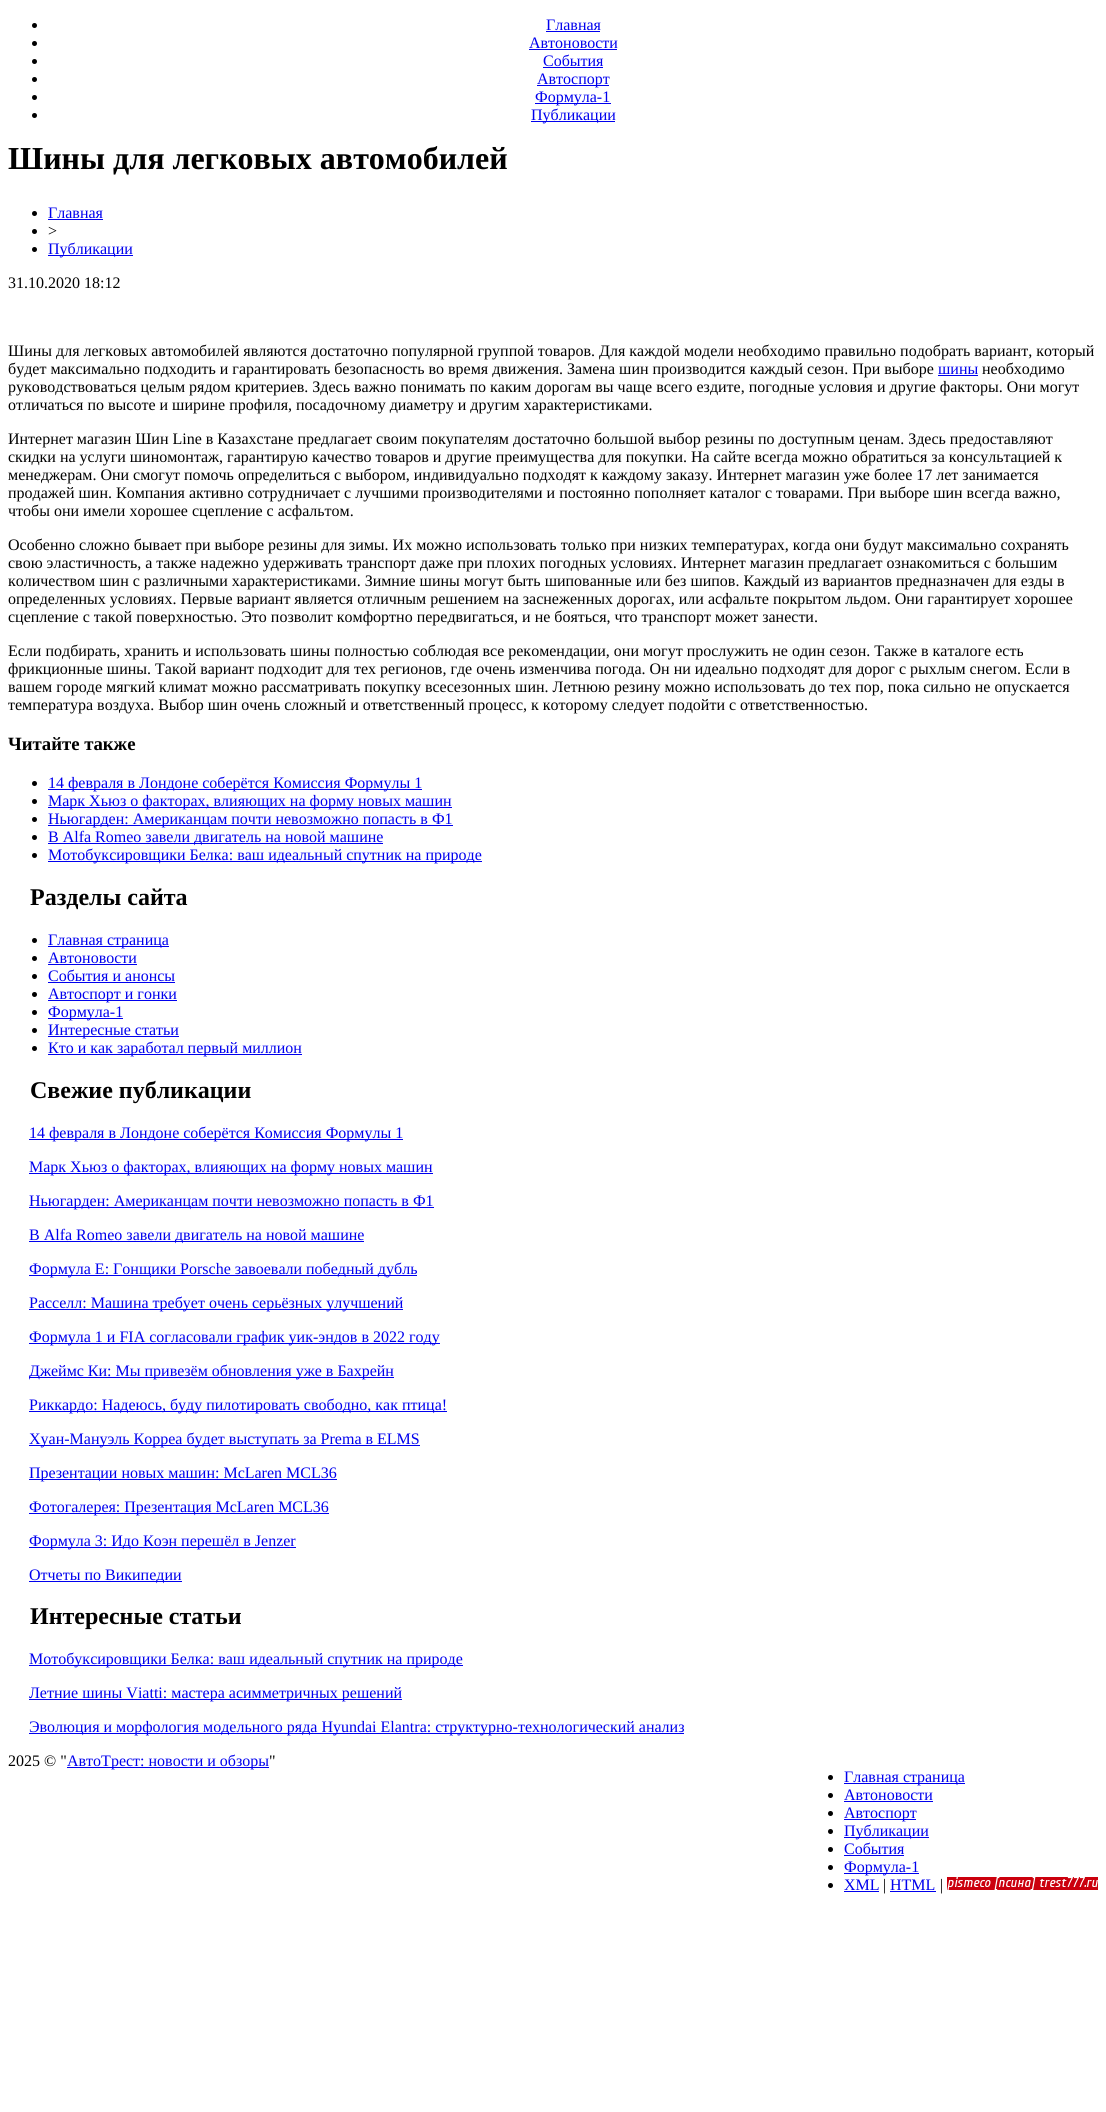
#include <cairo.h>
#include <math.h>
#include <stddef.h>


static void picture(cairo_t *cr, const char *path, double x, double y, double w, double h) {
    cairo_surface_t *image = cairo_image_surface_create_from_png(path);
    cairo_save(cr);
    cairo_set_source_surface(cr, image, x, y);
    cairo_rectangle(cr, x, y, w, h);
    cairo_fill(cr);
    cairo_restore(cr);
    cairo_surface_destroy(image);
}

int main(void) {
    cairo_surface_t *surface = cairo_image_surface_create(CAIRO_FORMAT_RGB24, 1106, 2112);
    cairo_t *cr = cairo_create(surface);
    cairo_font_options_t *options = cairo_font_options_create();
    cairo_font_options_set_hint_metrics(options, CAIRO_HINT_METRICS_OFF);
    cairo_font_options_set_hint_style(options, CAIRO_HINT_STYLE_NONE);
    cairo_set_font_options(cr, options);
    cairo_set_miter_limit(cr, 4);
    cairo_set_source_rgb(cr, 1, 1, 1);
    cairo_paint(cr);
    cairo_set_source_rgb(cr, 0, 0, 0);
    cairo_arc(cr, 34.5, 25.5, 2.5, 0, 2 * M_PI);
    cairo_fill(cr);
    cairo_select_font_face(cr, "Liberation Serif", CAIRO_FONT_SLANT_NORMAL, CAIRO_FONT_WEIGHT_NORMAL);
    cairo_set_font_size(cr, 16);
    cairo_set_source_rgb(cr, 0, 0, 0.933);
    cairo_move_to(cr, 546, 30);
    cairo_show_text(cr, "Главная");
    cairo_rectangle(cr, 546, 31, 54, 1);
    cairo_fill(cr);
    cairo_set_source_rgb(cr, 0, 0, 0);
    cairo_arc(cr, 34.5, 43.5, 2.5, 0, 2 * M_PI);
    cairo_fill(cr);
    cairo_set_source_rgb(cr, 0, 0, 0.933);
    cairo_move_to(cr, 529, 48);
    cairo_show_text(cr, "Автоновости");
    cairo_rectangle(cr, 529, 49, 88, 1);
    cairo_fill(cr);
    cairo_set_source_rgb(cr, 0, 0, 0);
    cairo_arc(cr, 34.5, 61.5, 2.5, 0, 2 * M_PI);
    cairo_fill(cr);
    cairo_set_source_rgb(cr, 0, 0, 0.933);
    cairo_move_to(cr, 543, 66);
    cairo_show_text(cr, "События");
    cairo_rectangle(cr, 543, 67, 60, 1);
    cairo_fill(cr);
    cairo_set_source_rgb(cr, 0, 0, 0);
    cairo_arc(cr, 34.5, 79.5, 2.5, 0, 2 * M_PI);
    cairo_fill(cr);
    cairo_set_source_rgb(cr, 0, 0, 0.933);
    cairo_rectangle(cr, 537, 85, 72, 1);
    cairo_fill(cr);
    cairo_move_to(cr, 537, 84);
    cairo_show_text(cr, "Автоспорт");
    cairo_set_source_rgb(cr, 0, 0, 0);
    cairo_new_path(cr);
    cairo_arc(cr, 34.5, 97.5, 2.5, 0, 2 * M_PI);
    cairo_fill(cr);
    cairo_set_source_rgb(cr, 0, 0, 0.933);
    cairo_rectangle(cr, 535, 103, 76, 1);
    cairo_fill(cr);
    cairo_move_to(cr, 535, 102);
    cairo_show_text(cr, "Формула-1");
    cairo_set_source_rgb(cr, 0, 0, 0);
    cairo_new_path(cr);
    cairo_arc(cr, 34.5, 115.5, 2.5, 0, 2 * M_PI);
    cairo_fill(cr);
    cairo_set_source_rgb(cr, 0, 0, 0.933);
    cairo_rectangle(cr, 531, 121, 84, 1);
    cairo_fill(cr);
    cairo_move_to(cr, 531, 120);
    cairo_show_text(cr, "Публикации");
    cairo_select_font_face(cr, "Liberation Serif", CAIRO_FONT_SLANT_NORMAL, CAIRO_FONT_WEIGHT_BOLD);
    cairo_set_font_size(cr, 32);
    cairo_set_source_rgb(cr, 0, 0, 0);
    cairo_move_to(cr, 8, 169);
    cairo_show_text(cr, "Шины для легковых автомобилей");
    cairo_new_path(cr);
    cairo_arc(cr, 34.5, 213.5, 2.5, 0, 2 * M_PI);
    cairo_fill(cr);
    cairo_select_font_face(cr, "Liberation Serif", CAIRO_FONT_SLANT_NORMAL, CAIRO_FONT_WEIGHT_NORMAL);
    cairo_set_font_size(cr, 16);
    cairo_set_source_rgb(cr, 0, 0, 0.933);
    cairo_move_to(cr, 48, 218);
    cairo_show_text(cr, "Главная");
    cairo_rectangle(cr, 48, 219, 55, 1);
    cairo_fill(cr);
    cairo_set_source_rgb(cr, 0, 0, 0);
    cairo_arc(cr, 34.5, 231.5, 2.5, 0, 2 * M_PI);
    cairo_fill(cr);
    cairo_move_to(cr, 48, 236);
    cairo_show_text(cr, ">");
    cairo_new_path(cr);
    cairo_arc(cr, 34.5, 249.5, 2.5, 0, 2 * M_PI);
    cairo_fill(cr);
    cairo_set_source_rgb(cr, 0, 0, 0.933);
    cairo_rectangle(cr, 48, 255, 85, 1);
    cairo_fill(cr);
    cairo_move_to(cr, 48, 254);
    cairo_show_text(cr, "Публикации");
    cairo_set_source_rgb(cr, 0, 0, 0);
    cairo_move_to(cr, 8, 288);
    cairo_show_text(cr, "31.10.2020 18:12");
    cairo_move_to(cr, 8, 356);
    cairo_show_text(cr, "Шины для легковых автомобилей являются достаточно популярной группой товаров. Для каждой модели необходимо правильно подобрать вариант, который");
    cairo_move_to(cr, 8, 374);
    cairo_show_text(cr, "будет максимально подходить и гарантировать безопасность во время движения. Замена шин производится каждый сезон. При выборе");
    cairo_set_source_rgb(cr, 0, 0, 0.933);
    cairo_move_to(cr, 938, 374);
    cairo_show_text(cr, "шины");
    cairo_rectangle(cr, 938, 375, 40, 1);
    cairo_fill(cr);
    cairo_set_source_rgb(cr, 0, 0, 0);
    cairo_move_to(cr, 982, 374);
    cairo_show_text(cr, "необходимо");
    cairo_move_to(cr, 8, 392);
    cairo_show_text(cr, "руководствоваться целым рядом критериев. Здесь важно понимать по каким дорогам вы чаще всего ездите, погодные условия и другие факторы. Они могут");
    cairo_move_to(cr, 8, 410);
    cairo_show_text(cr, "отличаться по высоте и ширине профиля, посадочному диаметру и другим характеристиками.");
    cairo_move_to(cr, 8, 444);
    cairo_show_text(cr, "Интернет магазин Шин Line в Казахстане предлагает своим покупателям достаточно большой выбор резины по доступным ценам. Здесь предоставляют");
    cairo_move_to(cr, 8, 462);
    cairo_show_text(cr, "скидки на услуги шиномонтаж, гарантирую качество товаров и другие преимущества для покупки. На сайте всегда можно обратиться за консультацией к");
    cairo_move_to(cr, 8, 480);
    cairo_show_text(cr, "менеджерам. Они смогут помочь определиться с выбором, индивидуально подходят к каждому заказу. Интернет магазин уже более 17 лет занимается");
    cairo_move_to(cr, 8, 498);
    cairo_show_text(cr, "продажей шин. Компания активно сотрудничает с лучшими производителями и постоянно пополняет каталог с товарами. При выборе шин всегда важно,");
    cairo_move_to(cr, 8, 516);
    cairo_show_text(cr, "чтобы они имели хорошее сцепление с асфальтом.");
    cairo_move_to(cr, 8, 550);
    cairo_show_text(cr, "Особенно сложно бывает при выборе резины для зимы. Их можно использовать только при низких температурах, когда они будут максимально сохранять");
    cairo_move_to(cr, 8, 568);
    cairo_show_text(cr, "свою эластичность, а также надежно удерживать транспорт даже при плохих погодных условиях. Интернет магазин предлагает ознакомиться с большим");
    cairo_move_to(cr, 8, 586);
    cairo_show_text(cr, "количеством шин с различными характеристиками. Зимние шины могут быть шипованные или без шипов. Каждый из вариантов предназначен для езды в");
    cairo_move_to(cr, 8, 604);
    cairo_show_text(cr, "определенных условиях. Первые вариант является отличным решением на заснеженных дорогах, или асфальте покрытом льдом. Они гарантирует хорошее");
    cairo_move_to(cr, 8, 622);
    cairo_show_text(cr, "сцепление с такой поверхностью. Это позволит комфортно передвигаться, и не бояться, что транспорт может занести.");
    cairo_move_to(cr, 8, 656);
    cairo_show_text(cr, "Если подбирать, хранить и использовать шины полностью соблюдая все рекомендации, они могут прослужить не один сезон. Также в каталоге есть");
    cairo_move_to(cr, 8, 674);
    cairo_show_text(cr, "фрикционные шины. Такой вариант подходит для тех регионов, где очень изменчива погода. Он ни идеально подходят для дорог с рыхлым снегом. Если в");
    cairo_move_to(cr, 8, 692);
    cairo_show_text(cr, "вашем городе мягкий климат можно рассматривать покупку всесезонных шин. Летнюю резину можно использовать до тех пор, пока сильно не опускается");
    cairo_move_to(cr, 8, 710);
    cairo_show_text(cr, "температура воздуха. Выбор шин очень сложный и ответственный процесс, к которому следует подойти с ответственностью.");
    cairo_select_font_face(cr, "Liberation Serif", CAIRO_FONT_SLANT_NORMAL, CAIRO_FONT_WEIGHT_BOLD);
    cairo_set_font_size(cr, 18.75);
    cairo_move_to(cr, 8, 750);
    cairo_show_text(cr, "Читайте также");
    cairo_new_path(cr);
    cairo_arc(cr, 34.5, 783.5, 2.5, 0, 2 * M_PI);
    cairo_fill(cr);
    cairo_set_source_rgb(cr, 0, 0, 0.933);
    cairo_rectangle(cr, 48, 789, 374, 1);
    cairo_fill(cr);
    cairo_select_font_face(cr, "Liberation Serif", CAIRO_FONT_SLANT_NORMAL, CAIRO_FONT_WEIGHT_NORMAL);
    cairo_set_font_size(cr, 16);
    cairo_move_to(cr, 48, 788);
    cairo_show_text(cr, "14 февраля в Лондоне соберётся Комиссия Формулы 1");
    cairo_set_source_rgb(cr, 0, 0, 0);
    cairo_new_path(cr);
    cairo_arc(cr, 34.5, 801.5, 2.5, 0, 2 * M_PI);
    cairo_fill(cr);
    cairo_set_source_rgb(cr, 0, 0, 0.933);
    cairo_rectangle(cr, 48, 807, 404, 1);
    cairo_fill(cr);
    cairo_move_to(cr, 48, 806);
    cairo_show_text(cr, "Марк Хьюз о факторах, влияющих на форму новых машин");
    cairo_set_source_rgb(cr, 0, 0, 0);
    cairo_new_path(cr);
    cairo_arc(cr, 34.5, 819.5, 2.5, 0, 2 * M_PI);
    cairo_fill(cr);
    cairo_set_source_rgb(cr, 0, 0, 0.933);
    cairo_rectangle(cr, 48, 825, 405, 1);
    cairo_fill(cr);
    cairo_move_to(cr, 48, 824);
    cairo_show_text(cr, "Ньюгарден: Американцам почти невозможно попасть в Ф1");
    cairo_set_source_rgb(cr, 0, 0, 0);
    cairo_new_path(cr);
    cairo_arc(cr, 34.5, 837.5, 2.5, 0, 2 * M_PI);
    cairo_fill(cr);
    cairo_set_source_rgb(cr, 0, 0, 0.933);
    cairo_rectangle(cr, 48, 843, 335, 1);
    cairo_fill(cr);
    cairo_move_to(cr, 48, 842);
    cairo_show_text(cr, "В Alfa Romeo завели двигатель на новой машине");
    cairo_set_source_rgb(cr, 0, 0, 0);
    cairo_new_path(cr);
    cairo_arc(cr, 34.5, 855.5, 2.5, 0, 2 * M_PI);
    cairo_fill(cr);
    cairo_set_source_rgb(cr, 0, 0, 0.933);
    cairo_rectangle(cr, 48, 861, 434, 1);
    cairo_fill(cr);
    cairo_move_to(cr, 48, 860);
    cairo_show_text(cr, "Мотобуксировщики Белка: ваш идеальный спутник на природе");
    cairo_select_font_face(cr, "Liberation Serif", CAIRO_FONT_SLANT_NORMAL, CAIRO_FONT_WEIGHT_BOLD);
    cairo_set_font_size(cr, 24);
    cairo_set_source_rgb(cr, 0, 0, 0);
    cairo_move_to(cr, 30, 905);
    cairo_show_text(cr, "Разделы сайта");
    cairo_new_path(cr);
    cairo_arc(cr, 34.5, 940.5, 2.5, 0, 2 * M_PI);
    cairo_fill(cr);
    cairo_set_source_rgb(cr, 0, 0, 0.933);
    cairo_rectangle(cr, 48, 946, 121, 1);
    cairo_fill(cr);
    cairo_select_font_face(cr, "Liberation Serif", CAIRO_FONT_SLANT_NORMAL, CAIRO_FONT_WEIGHT_NORMAL);
    cairo_set_font_size(cr, 16);
    cairo_move_to(cr, 48, 945);
    cairo_show_text(cr, "Главная страница");
    cairo_set_source_rgb(cr, 0, 0, 0);
    cairo_new_path(cr);
    cairo_arc(cr, 34.5, 958.5, 2.5, 0, 2 * M_PI);
    cairo_fill(cr);
    cairo_set_source_rgb(cr, 0, 0, 0.933);
    cairo_move_to(cr, 48, 963);
    cairo_show_text(cr, "Автоновости");
    cairo_rectangle(cr, 48, 964, 89, 1);
    cairo_fill(cr);
    cairo_set_source_rgb(cr, 0, 0, 0);
    cairo_arc(cr, 34.5, 976.5, 2.5, 0, 2 * M_PI);
    cairo_fill(cr);
    cairo_set_source_rgb(cr, 0, 0, 0.933);
    cairo_move_to(cr, 48, 981);
    cairo_show_text(cr, "События и анонсы");
    cairo_rectangle(cr, 48, 982, 127, 1);
    cairo_fill(cr);
    cairo_set_source_rgb(cr, 0, 0, 0);
    cairo_arc(cr, 34.5, 994.5, 2.5, 0, 2 * M_PI);
    cairo_fill(cr);
    cairo_set_source_rgb(cr, 0, 0, 0.933);
    cairo_rectangle(cr, 48, 1000, 129, 1);
    cairo_fill(cr);
    cairo_move_to(cr, 48, 999);
    cairo_show_text(cr, "Автоспорт и гонки");
    cairo_set_source_rgb(cr, 0, 0, 0);
    cairo_new_path(cr);
    cairo_arc(cr, 34.5, 1012.5, 2.5, 0, 2 * M_PI);
    cairo_fill(cr);
    cairo_set_source_rgb(cr, 0, 0, 0.933);
    cairo_rectangle(cr, 48, 1018, 75, 1);
    cairo_fill(cr);
    cairo_move_to(cr, 48, 1017);
    cairo_show_text(cr, "Формула-1");
    cairo_set_source_rgb(cr, 0, 0, 0);
    cairo_new_path(cr);
    cairo_arc(cr, 34.5, 1030.5, 2.5, 0, 2 * M_PI);
    cairo_fill(cr);
    cairo_set_source_rgb(cr, 0, 0, 0.933);
    cairo_rectangle(cr, 48, 1036, 131, 1);
    cairo_fill(cr);
    cairo_move_to(cr, 48, 1035);
    cairo_show_text(cr, "Интересные статьи");
    cairo_set_source_rgb(cr, 0, 0, 0);
    cairo_new_path(cr);
    cairo_arc(cr, 34.5, 1048.5, 2.5, 0, 2 * M_PI);
    cairo_fill(cr);
    cairo_set_source_rgb(cr, 0, 0, 0.933);
    cairo_rectangle(cr, 48, 1054, 254, 1);
    cairo_fill(cr);
    cairo_move_to(cr, 48, 1053);
    cairo_show_text(cr, "Кто и как заработал первый миллион");
    cairo_select_font_face(cr, "Liberation Serif", CAIRO_FONT_SLANT_NORMAL, CAIRO_FONT_WEIGHT_BOLD);
    cairo_set_font_size(cr, 24);
    cairo_set_source_rgb(cr, 0, 0, 0);
    cairo_move_to(cr, 30, 1098);
    cairo_show_text(cr, "Свежие публикации");
    cairo_set_source_rgb(cr, 0, 0, 0.933);
    cairo_rectangle(cr, 29, 1139, 374, 1);
    cairo_fill(cr);
    cairo_select_font_face(cr, "Liberation Serif", CAIRO_FONT_SLANT_NORMAL, CAIRO_FONT_WEIGHT_NORMAL);
    cairo_set_font_size(cr, 16);
    cairo_move_to(cr, 29, 1138);
    cairo_show_text(cr, "14 февраля в Лондоне соберётся Комиссия Формулы 1");
    cairo_rectangle(cr, 29, 1173, 404, 1);
    cairo_fill(cr);
    cairo_move_to(cr, 29, 1172);
    cairo_show_text(cr, "Марк Хьюз о факторах, влияющих на форму новых машин");
    cairo_rectangle(cr, 29, 1207, 405, 1);
    cairo_fill(cr);
    cairo_move_to(cr, 29, 1206);
    cairo_show_text(cr, "Ньюгарден: Американцам почти невозможно попасть в Ф1");
    cairo_rectangle(cr, 29, 1241, 335, 1);
    cairo_fill(cr);
    cairo_move_to(cr, 29, 1240);
    cairo_show_text(cr, "В Alfa Romeo завели двигатель на новой машине");
    cairo_rectangle(cr, 29, 1275, 388, 1);
    cairo_fill(cr);
    cairo_move_to(cr, 29, 1274);
    cairo_show_text(cr, "Формула E: Гонщики Porsche завоевали победный дубль");
    cairo_rectangle(cr, 29, 1309, 374, 1);
    cairo_fill(cr);
    cairo_move_to(cr, 29, 1308);
    cairo_show_text(cr, "Расселл: Машина требует очень серьёзных улучшений");
    cairo_rectangle(cr, 29, 1343, 411, 1);
    cairo_fill(cr);
    cairo_move_to(cr, 29, 1342);
    cairo_show_text(cr, "Формула 1 и FIA согласовали график уик-эндов в 2022 году");
    cairo_rectangle(cr, 29, 1377, 365, 1);
    cairo_fill(cr);
    cairo_move_to(cr, 29, 1376);
    cairo_show_text(cr, "Джеймс Ки: Мы привезём обновления уже в Бахрейн");
    cairo_rectangle(cr, 29, 1411, 418, 1);
    cairo_fill(cr);
    cairo_move_to(cr, 29, 1410);
    cairo_show_text(cr, "Риккардо: Надеюсь, буду пилотировать свободно, как птица!");
    cairo_rectangle(cr, 29, 1445, 391, 1);
    cairo_fill(cr);
    cairo_move_to(cr, 29, 1444);
    cairo_show_text(cr, "Хуан-Мануэль Корреа будет выступать за Prema в ELMS");
    cairo_rectangle(cr, 29, 1479, 308, 1);
    cairo_fill(cr);
    cairo_move_to(cr, 29, 1478);
    cairo_show_text(cr, "Презентации новых машин: McLaren MCL36");
    cairo_rectangle(cr, 29, 1513, 300, 1);
    cairo_fill(cr);
    cairo_move_to(cr, 29, 1512);
    cairo_show_text(cr, "Фотогалерея: Презентация McLaren MCL36");
    cairo_rectangle(cr, 29, 1547, 267, 1);
    cairo_fill(cr);
    cairo_move_to(cr, 29, 1546);
    cairo_show_text(cr, "Формула 3: Идо Коэн перешёл в Jenzer");
    cairo_rectangle(cr, 29, 1581, 153, 1);
    cairo_fill(cr);
    cairo_move_to(cr, 29, 1580);
    cairo_show_text(cr, "Отчеты по Википедии");
    cairo_select_font_face(cr, "Liberation Serif", CAIRO_FONT_SLANT_NORMAL, CAIRO_FONT_WEIGHT_BOLD);
    cairo_set_font_size(cr, 24);
    cairo_set_source_rgb(cr, 0, 0, 0);
    cairo_move_to(cr, 30, 1624);
    cairo_show_text(cr, "Интересные статьи");
    cairo_set_source_rgb(cr, 0, 0, 0.933);
    cairo_rectangle(cr, 29, 1665, 434, 1);
    cairo_fill(cr);
    cairo_select_font_face(cr, "Liberation Serif", CAIRO_FONT_SLANT_NORMAL, CAIRO_FONT_WEIGHT_NORMAL);
    cairo_set_font_size(cr, 16);
    cairo_move_to(cr, 29, 1664);
    cairo_show_text(cr, "Мотобуксировщики Белка: ваш идеальный спутник на природе");
    cairo_rectangle(cr, 29, 1699, 373, 1);
    cairo_fill(cr);
    cairo_move_to(cr, 29, 1698);
    cairo_show_text(cr, "Летние шины Viatti: мастера асимметричных решений");
    cairo_rectangle(cr, 29, 1733, 655, 1);
    cairo_fill(cr);
    cairo_move_to(cr, 29, 1732);
    cairo_show_text(cr, "Эволюция и морфология модельного ряда Hyundai Elantra: структурно-технологический анализ");
    cairo_set_source_rgb(cr, 0, 0, 0);
    cairo_move_to(cr, 8, 1766);
    cairo_show_text(cr, "2025 © \"");
    cairo_set_source_rgb(cr, 0, 0, 0.933);
    cairo_rectangle(cr, 67, 1767, 202, 1);
    cairo_fill(cr);
    cairo_move_to(cr, 67, 1766);
    cairo_show_text(cr, "АвтоТрест: новости и обзоры");
    cairo_set_source_rgb(cr, 0, 0, 0);
    cairo_move_to(cr, 269, 1766);
    cairo_show_text(cr, "\"");
    cairo_new_path(cr);
    cairo_arc(cr, 830.5, 1777.5, 2.5, 0, 2 * M_PI);
    cairo_fill(cr);
    cairo_set_source_rgb(cr, 0, 0, 0.933);
    cairo_rectangle(cr, 844, 1783, 121, 1);
    cairo_fill(cr);
    cairo_move_to(cr, 844, 1782);
    cairo_show_text(cr, "Главная страница");
    cairo_set_source_rgb(cr, 0, 0, 0);
    cairo_new_path(cr);
    cairo_arc(cr, 830.5, 1795.5, 2.5, 0, 2 * M_PI);
    cairo_fill(cr);
    cairo_set_source_rgb(cr, 0, 0, 0.933);
    cairo_move_to(cr, 844, 1800);
    cairo_show_text(cr, "Автоновости");
    cairo_rectangle(cr, 844, 1801, 89, 1);
    cairo_fill(cr);
    cairo_set_source_rgb(cr, 0, 0, 0);
    cairo_arc(cr, 830.5, 1813.5, 2.5, 0, 2 * M_PI);
    cairo_fill(cr);
    cairo_set_source_rgb(cr, 0, 0, 0.933);
    cairo_rectangle(cr, 844, 1819, 72, 1);
    cairo_fill(cr);
    cairo_move_to(cr, 844, 1818);
    cairo_show_text(cr, "Автоспорт");
    cairo_set_source_rgb(cr, 0, 0, 0);
    cairo_new_path(cr);
    cairo_arc(cr, 830.5, 1831.5, 2.5, 0, 2 * M_PI);
    cairo_fill(cr);
    cairo_set_source_rgb(cr, 0, 0, 0.933);
    cairo_rectangle(cr, 844, 1837, 85, 1);
    cairo_fill(cr);
    cairo_move_to(cr, 844, 1836);
    cairo_show_text(cr, "Публикации");
    cairo_set_source_rgb(cr, 0, 0, 0);
    cairo_new_path(cr);
    cairo_arc(cr, 830.5, 1849.5, 2.5, 0, 2 * M_PI);
    cairo_fill(cr);
    cairo_set_source_rgb(cr, 0, 0, 0.933);
    cairo_move_to(cr, 844, 1854);
    cairo_show_text(cr, "События");
    cairo_rectangle(cr, 844, 1855, 60, 1);
    cairo_fill(cr);
    cairo_set_source_rgb(cr, 0, 0, 0);
    cairo_arc(cr, 830.5, 1867.5, 2.5, 0, 2 * M_PI);
    cairo_fill(cr);
    cairo_set_source_rgb(cr, 0, 0, 0.933);
    cairo_rectangle(cr, 844, 1873, 75, 1);
    cairo_fill(cr);
    cairo_move_to(cr, 844, 1872);
    cairo_show_text(cr, "Формула-1");
    cairo_set_source_rgb(cr, 0, 0, 0);
    cairo_new_path(cr);
    cairo_arc(cr, 830.5, 1885.5, 2.5, 0, 2 * M_PI);
    cairo_fill(cr);
    cairo_set_source_rgb(cr, 0, 0, 0.933);
    cairo_move_to(cr, 844, 1890);
    cairo_show_text(cr, "XML");
    cairo_rectangle(cr, 844, 1891, 35, 1);
    cairo_fill(cr);
    cairo_set_source_rgb(cr, 0, 0, 0);
    cairo_move_to(cr, 883, 1890);
    cairo_show_text(cr, "|");
    cairo_set_source_rgb(cr, 0, 0, 0.933);
    cairo_move_to(cr, 890, 1890);
    cairo_show_text(cr, "HTML");
    cairo_rectangle(cr, 890, 1891, 46, 1);
    cairo_fill(cr);
    cairo_set_source_rgb(cr, 0, 0, 0);
    cairo_move_to(cr, 940, 1890);
    cairo_show_text(cr, "|");
    picture(cr, "img1.png", 947, 1877, 151, 13);
    cairo_surface_write_to_png(surface, "page.png");
    cairo_font_options_destroy(options);
    cairo_destroy(cr);
    cairo_surface_destroy(surface);
    return 0;
}
